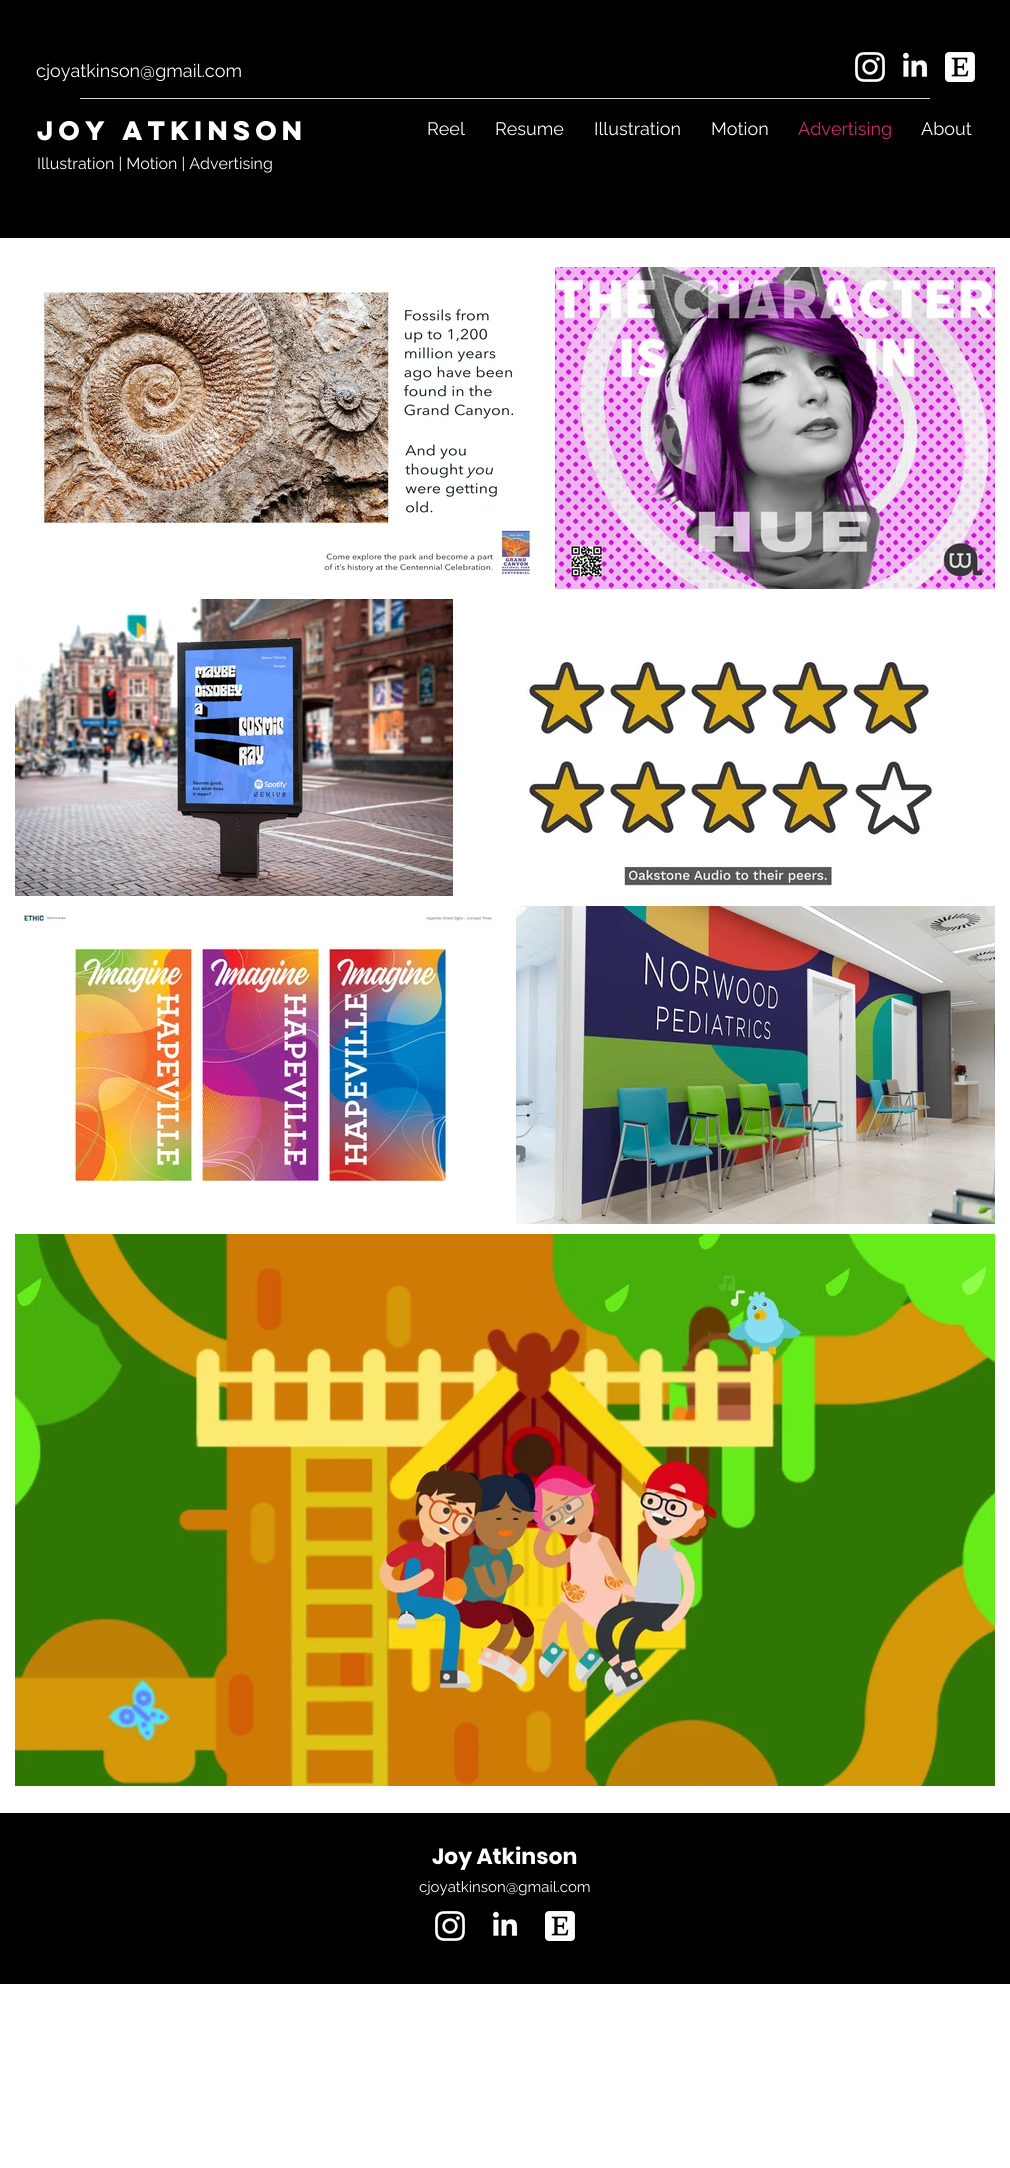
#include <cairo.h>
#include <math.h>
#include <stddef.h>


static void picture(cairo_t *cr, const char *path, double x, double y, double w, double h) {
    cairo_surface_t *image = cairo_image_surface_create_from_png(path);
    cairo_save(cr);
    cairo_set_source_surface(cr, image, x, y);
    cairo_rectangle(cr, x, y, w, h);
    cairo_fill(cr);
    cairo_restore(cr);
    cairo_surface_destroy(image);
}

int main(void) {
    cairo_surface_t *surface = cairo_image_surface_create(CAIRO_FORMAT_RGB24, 1010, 2168);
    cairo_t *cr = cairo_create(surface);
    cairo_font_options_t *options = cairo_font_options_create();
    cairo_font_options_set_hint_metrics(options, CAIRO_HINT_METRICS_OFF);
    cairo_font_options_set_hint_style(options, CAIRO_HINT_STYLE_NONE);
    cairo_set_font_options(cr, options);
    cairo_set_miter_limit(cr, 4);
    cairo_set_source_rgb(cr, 1, 1, 1);
    cairo_paint(cr);
    cairo_set_source_rgb(cr, 0, 0, 0);
    cairo_rectangle(cr, 0, 0, 1010, 238);
    cairo_fill(cr);
    cairo_select_font_face(cr, "Raleway", CAIRO_FONT_SLANT_NORMAL, CAIRO_FONT_WEIGHT_NORMAL);
    cairo_set_font_size(cr, 18);
    cairo_set_source_rgb(cr, 1, 1, 1);
    cairo_move_to(cr, 36, 77);
    cairo_show_text(cr, "cjoyatkinson@gmail.com");
    picture(cr, "img1.png", 855, 52, 30, 30);
    picture(cr, "img2.png", 902, 52, 26, 25);
    picture(cr, "img3.png", 945, 52, 30, 30);
    cairo_set_source_rgb(cr, 0.851, 0.851, 0.851);
    cairo_rectangle(cr, 80, 98, 850, 1);
    cairo_fill(cr);
    cairo_select_font_face(cr, "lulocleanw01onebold", CAIRO_FONT_SLANT_NORMAL, CAIRO_FONT_WEIGHT_BOLD);
    cairo_set_font_size(cr, 24);
    cairo_set_source_rgb(cr, 1, 1, 1);
    cairo_move_to(cr, 37, 140);
    cairo_show_text(cr, "Joy Atkinson");
    cairo_select_font_face(cr, "Raleway", CAIRO_FONT_SLANT_NORMAL, CAIRO_FONT_WEIGHT_NORMAL);
    cairo_set_font_size(cr, 16);
    cairo_move_to(cr, 37, 169);
    cairo_show_text(cr, "Illustration | Motion | Advertising");
    cairo_set_font_size(cr, 18);
    cairo_move_to(cr, 427, 135);
    cairo_show_text(cr, "Reel");
    cairo_move_to(cr, 495, 135);
    cairo_show_text(cr, "Resume");
    cairo_move_to(cr, 594, 135);
    cairo_show_text(cr, "Illustration");
    cairo_move_to(cr, 711, 135);
    cairo_show_text(cr, "Motion");
    cairo_set_source_rgb(cr, 0.824, 0.153, 0.439);
    cairo_move_to(cr, 798, 135);
    cairo_show_text(cr, "Advertising");
    cairo_set_source_rgb(cr, 1, 1, 1);
    cairo_move_to(cr, 921, 135);
    cairo_show_text(cr, "About");
    picture(cr, "img4.png", 15, 267, 530, 322);
    picture(cr, "img5.png", 555, 267, 440, 322);
    picture(cr, "img6.png", 15, 599, 438, 297);
    picture(cr, "img7.png", 463, 599, 532, 297);
    picture(cr, "img8.png", 15, 906, 491, 318);
    picture(cr, "img9.png", 516, 906, 479, 318);
    picture(cr, "img10.png", 15, 1234, 980, 552);
    cairo_set_source_rgb(cr, 0, 0, 0);
    cairo_rectangle(cr, 0, 1814, 1010, 170);
    cairo_fill(cr);
    cairo_set_source_rgb(cr, 0.039, 0.004, 0.016);
    cairo_rectangle(cr, 0, 1813, 1010, 1);
    cairo_fill(cr);
    cairo_select_font_face(cr, "Poppins", CAIRO_FONT_SLANT_NORMAL, CAIRO_FONT_WEIGHT_BOLD);
    cairo_set_font_size(cr, 22);
    cairo_set_source_rgb(cr, 1, 1, 1);
    cairo_move_to(cr, 432, 1864);
    cairo_show_text(cr, "Joy Atkinson");
    cairo_select_font_face(cr, "Raleway", CAIRO_FONT_SLANT_NORMAL, CAIRO_FONT_WEIGHT_NORMAL);
    cairo_set_font_size(cr, 15);
    cairo_move_to(cr, 419, 1892);
    cairo_show_text(cr, "cjoyatkinson@gmail.com");
    picture(cr, "img1.png", 435, 1911, 30, 30);
    picture(cr, "img2.png", 492, 1911, 26, 25);
    picture(cr, "img3.png", 545, 1911, 30, 30);
    cairo_surface_write_to_png(surface, "page.png");
    cairo_font_options_destroy(options);
    cairo_destroy(cr);
    cairo_surface_destroy(surface);
    return 0;
}
